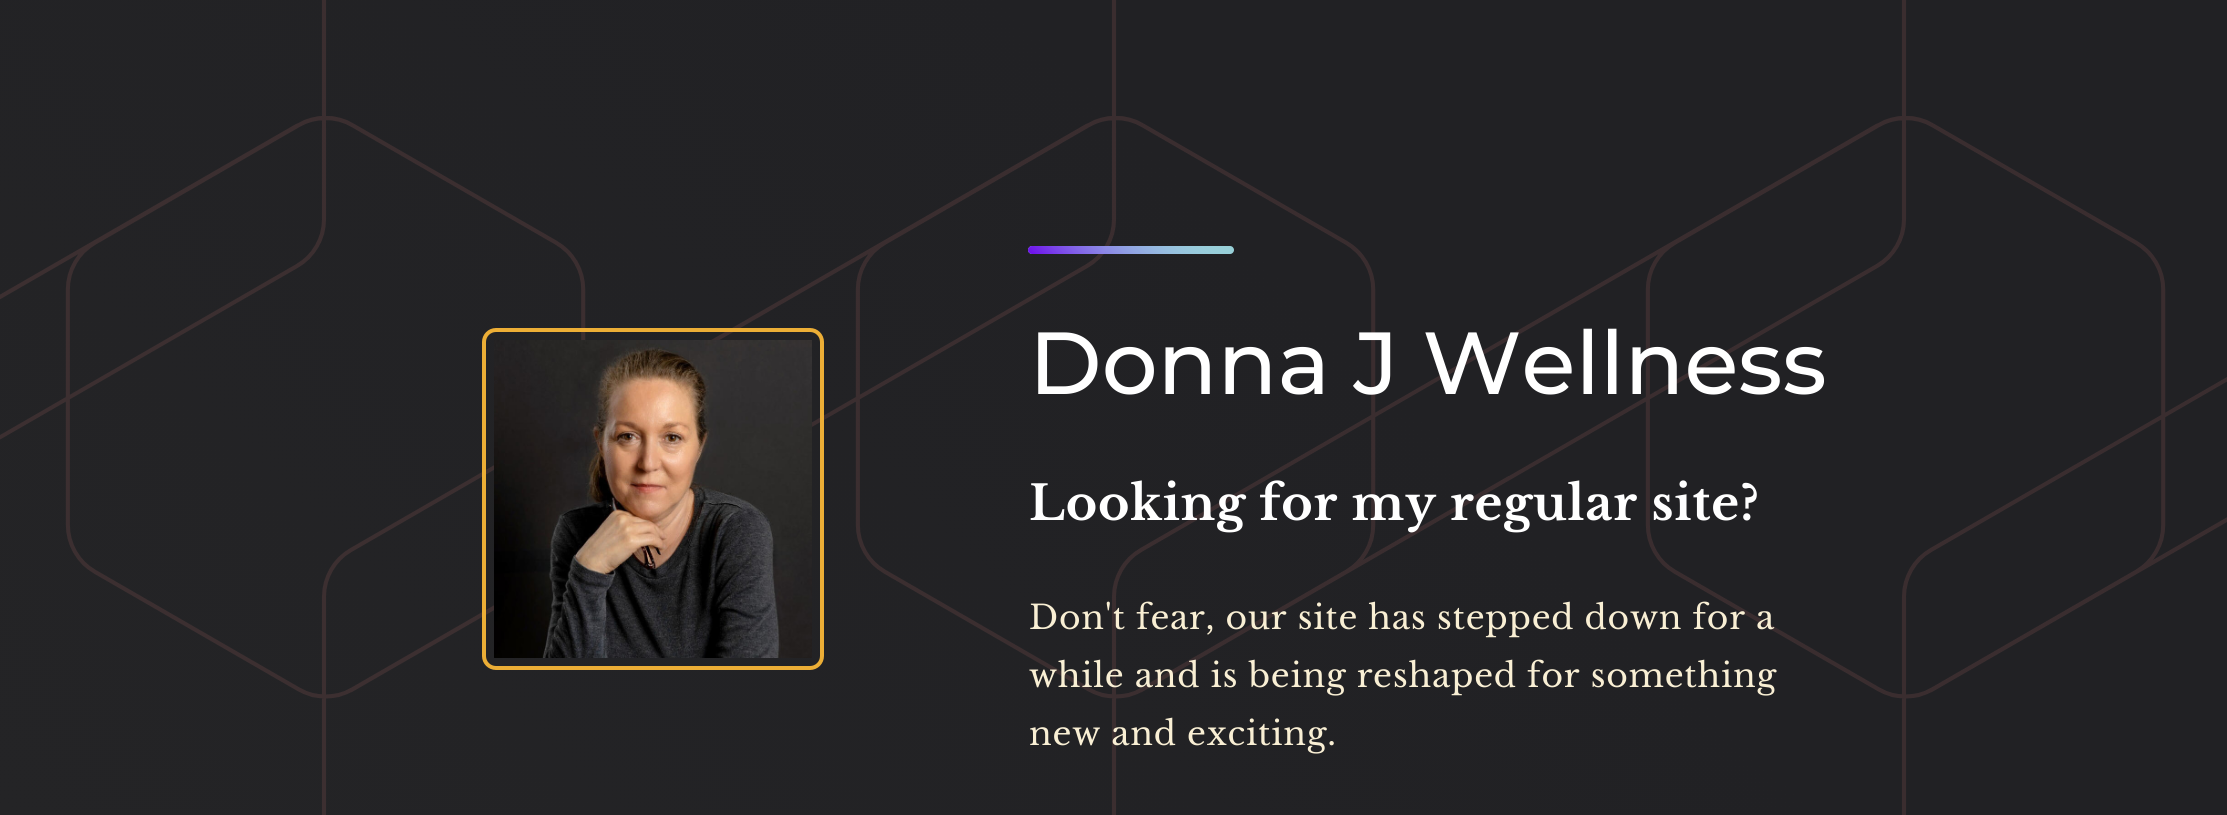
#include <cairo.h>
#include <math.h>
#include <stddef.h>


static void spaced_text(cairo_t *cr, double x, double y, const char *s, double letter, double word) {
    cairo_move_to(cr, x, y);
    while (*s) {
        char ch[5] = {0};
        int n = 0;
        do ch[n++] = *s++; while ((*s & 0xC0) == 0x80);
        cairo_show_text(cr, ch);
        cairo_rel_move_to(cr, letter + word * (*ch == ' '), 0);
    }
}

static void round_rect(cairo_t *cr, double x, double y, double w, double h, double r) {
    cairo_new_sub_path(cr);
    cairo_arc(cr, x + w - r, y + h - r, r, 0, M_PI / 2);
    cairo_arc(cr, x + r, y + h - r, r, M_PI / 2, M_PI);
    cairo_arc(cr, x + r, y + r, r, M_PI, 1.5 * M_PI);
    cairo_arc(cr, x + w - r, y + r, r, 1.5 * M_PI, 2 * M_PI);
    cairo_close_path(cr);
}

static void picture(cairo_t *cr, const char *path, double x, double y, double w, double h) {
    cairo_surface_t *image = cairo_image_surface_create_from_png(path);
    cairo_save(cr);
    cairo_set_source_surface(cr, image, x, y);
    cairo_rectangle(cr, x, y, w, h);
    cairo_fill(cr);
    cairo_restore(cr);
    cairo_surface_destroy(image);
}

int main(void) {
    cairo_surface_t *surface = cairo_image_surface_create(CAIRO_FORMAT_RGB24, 2227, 815);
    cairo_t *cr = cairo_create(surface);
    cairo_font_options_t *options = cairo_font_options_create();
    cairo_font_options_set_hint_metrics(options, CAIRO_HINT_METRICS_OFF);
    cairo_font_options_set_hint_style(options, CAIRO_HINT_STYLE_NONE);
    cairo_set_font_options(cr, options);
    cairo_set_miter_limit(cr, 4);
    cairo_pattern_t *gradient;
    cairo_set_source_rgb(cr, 1, 1, 1);
    cairo_paint(cr);
    picture(cr, "img1.png", 0, 0, 2227, 815);
    round_rect(cr, 484, 330, 338, 338, 12);
    cairo_set_source_rgb(cr, 0.925, 0.682, 0.212);
    cairo_set_line_width(cr, 4);
    cairo_stroke(cr);
    picture(cr, "img2.png", 494, 340, 318, 318);
    cairo_set_source_rgba(cr, 0.671, 0.925, 0.961, 0.85);
    round_rect(cr, 1028, 246, 206, 8, 4);
    cairo_fill(cr);
    gradient = cairo_pattern_create_linear(1078, 304, 1185, 197);
    cairo_pattern_add_color_stop_rgba(gradient, 0, 0.424, 0.035, 0.922, 1);
    cairo_pattern_add_color_stop_rgba(gradient, 1, 0.671, 0.925, 0.961, 0.01);
    cairo_set_source(cr, gradient);
    cairo_pattern_destroy(gradient);
    round_rect(cr, 1028, 246, 206, 8, 4);
    cairo_fill(cr);
    cairo_select_font_face(cr, "Montserrat Medium", CAIRO_FONT_SLANT_NORMAL, CAIRO_FONT_WEIGHT_NORMAL);
    cairo_set_font_size(cr, 88);
    cairo_set_source_rgb(cr, 1, 1, 1);
    cairo_move_to(cr, 1029, 394);
    cairo_show_text(cr, "Donna J Wellness");
    cairo_select_font_face(cr, "Libre Baskerville", CAIRO_FONT_SLANT_NORMAL, CAIRO_FONT_WEIGHT_BOLD);
    cairo_set_font_size(cr, 47.7);
    spaced_text(cr, 1029, 520, "Looking for my regular site?", 0.75, 0);
    cairo_select_font_face(cr, "Libre Baskerville", CAIRO_FONT_SLANT_NORMAL, CAIRO_FONT_WEIGHT_NORMAL);
    cairo_set_font_size(cr, 33);
    cairo_set_source_rgb(cr, 0.973, 0.937, 0.831);
    spaced_text(cr, 1029, 629, "Don't fear, our site has stepped down for a", 0.75, 0);
    spaced_text(cr, 1029, 687, "while and is being reshaped for something", 0.75, 0);
    spaced_text(cr, 1029, 745, "new and exciting.", 0.75, 0);
    cairo_surface_write_to_png(surface, "page.png");
    cairo_font_options_destroy(options);
    cairo_destroy(cr);
    cairo_surface_destroy(surface);
    return 0;
}
